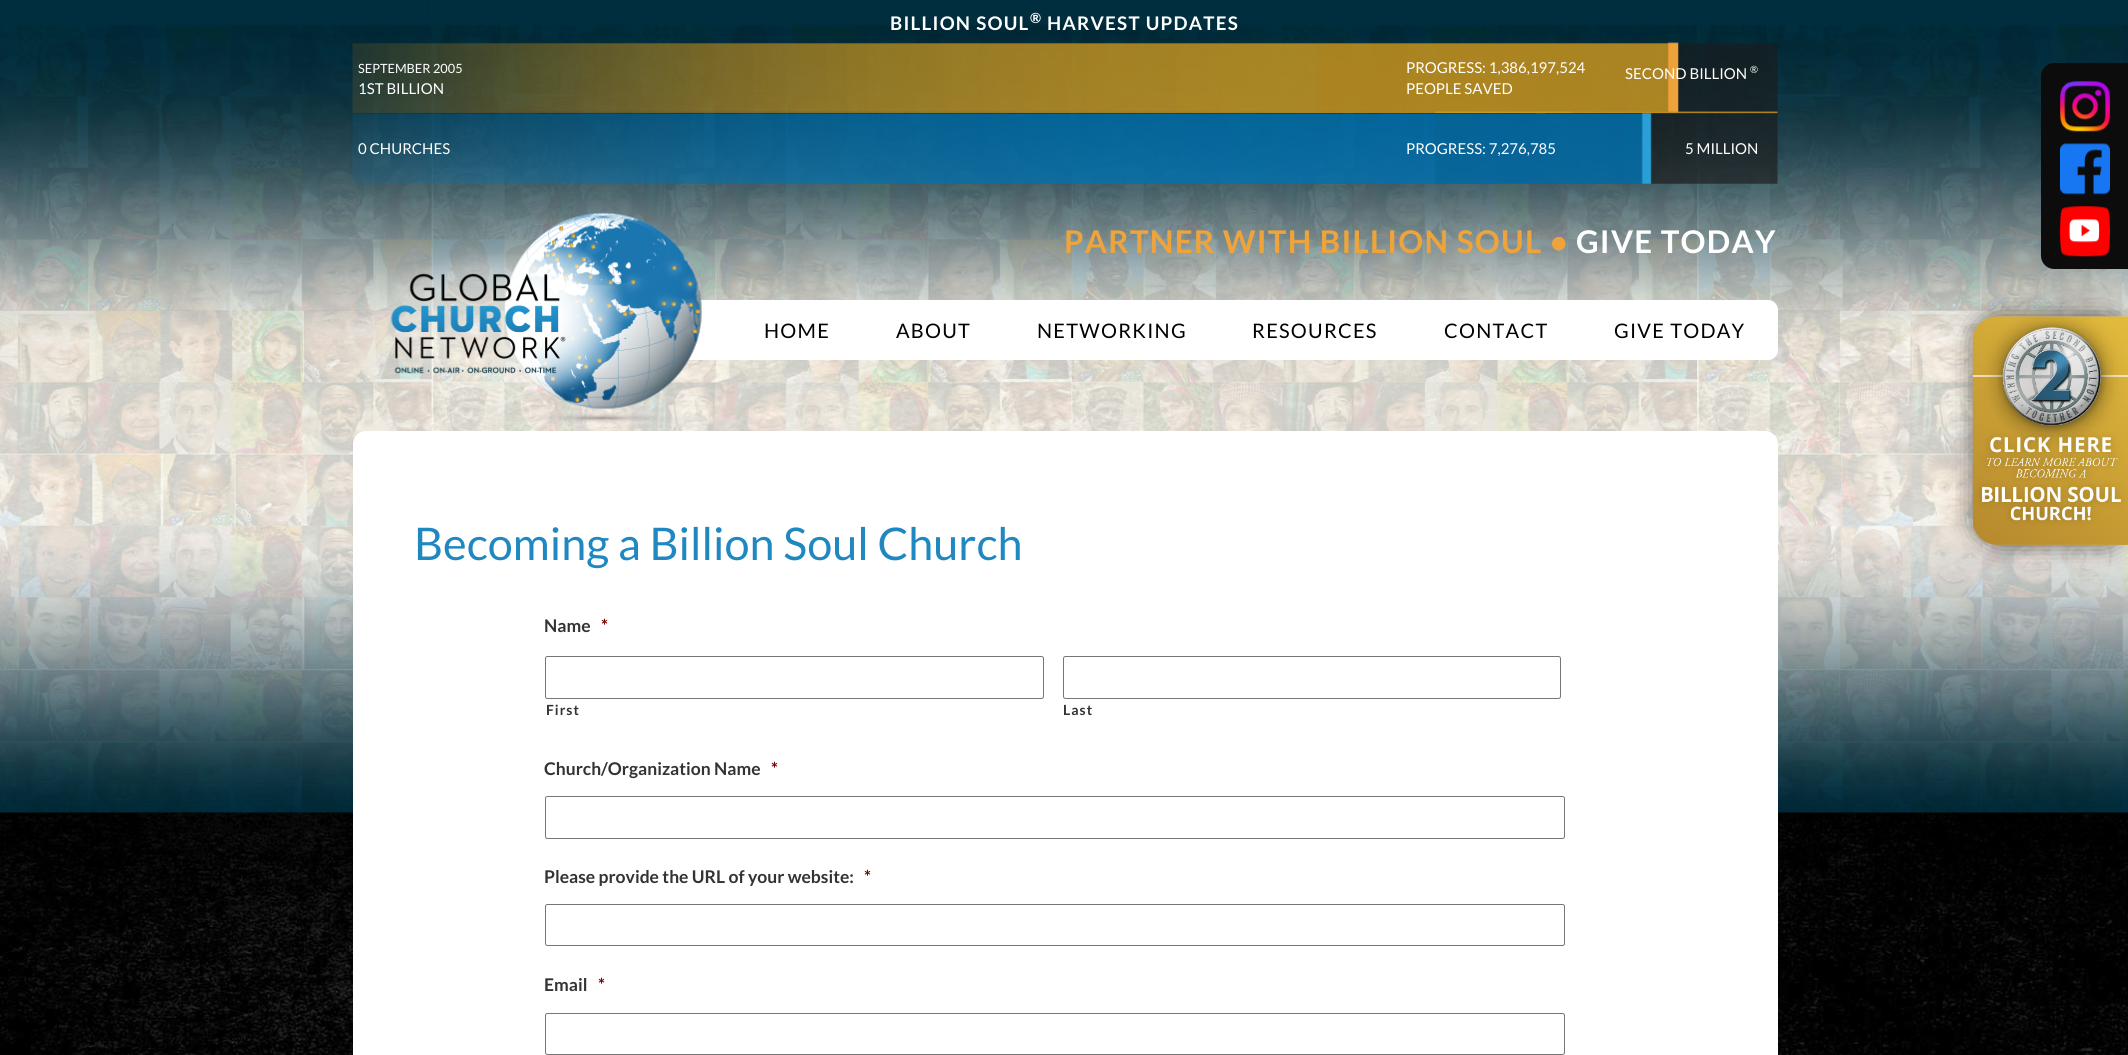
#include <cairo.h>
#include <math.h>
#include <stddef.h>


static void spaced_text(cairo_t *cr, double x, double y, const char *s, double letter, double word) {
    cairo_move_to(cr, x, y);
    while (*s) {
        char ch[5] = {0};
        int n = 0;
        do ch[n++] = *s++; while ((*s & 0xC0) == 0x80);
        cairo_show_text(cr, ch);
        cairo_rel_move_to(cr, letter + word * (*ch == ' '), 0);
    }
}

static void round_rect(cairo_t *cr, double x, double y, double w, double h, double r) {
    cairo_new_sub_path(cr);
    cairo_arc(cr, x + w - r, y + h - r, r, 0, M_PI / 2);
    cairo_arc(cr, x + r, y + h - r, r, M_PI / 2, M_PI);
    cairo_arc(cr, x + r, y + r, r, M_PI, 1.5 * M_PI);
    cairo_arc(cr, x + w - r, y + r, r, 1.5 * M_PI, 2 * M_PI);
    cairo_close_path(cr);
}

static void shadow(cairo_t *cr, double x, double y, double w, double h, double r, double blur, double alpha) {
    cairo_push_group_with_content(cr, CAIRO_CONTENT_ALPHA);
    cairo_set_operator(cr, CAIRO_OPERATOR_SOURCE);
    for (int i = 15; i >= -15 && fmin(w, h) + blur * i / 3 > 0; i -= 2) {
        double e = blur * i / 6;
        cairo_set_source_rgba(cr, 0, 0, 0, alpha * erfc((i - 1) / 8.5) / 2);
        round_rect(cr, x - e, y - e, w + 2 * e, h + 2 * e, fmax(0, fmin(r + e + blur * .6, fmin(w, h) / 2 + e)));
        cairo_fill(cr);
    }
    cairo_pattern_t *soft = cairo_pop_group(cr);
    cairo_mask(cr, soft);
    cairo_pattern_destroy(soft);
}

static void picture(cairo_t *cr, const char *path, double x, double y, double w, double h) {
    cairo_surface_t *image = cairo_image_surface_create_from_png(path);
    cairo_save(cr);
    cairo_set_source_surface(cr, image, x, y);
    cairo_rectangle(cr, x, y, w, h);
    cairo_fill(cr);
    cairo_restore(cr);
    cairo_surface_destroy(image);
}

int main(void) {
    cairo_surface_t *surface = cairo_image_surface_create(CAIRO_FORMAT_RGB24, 2128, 1055);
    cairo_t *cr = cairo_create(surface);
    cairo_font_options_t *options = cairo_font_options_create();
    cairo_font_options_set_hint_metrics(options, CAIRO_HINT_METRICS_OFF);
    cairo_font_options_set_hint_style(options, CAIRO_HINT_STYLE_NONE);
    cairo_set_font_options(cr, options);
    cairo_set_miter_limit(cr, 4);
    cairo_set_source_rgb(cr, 1, 1, 1);
    cairo_paint(cr);
    picture(cr, "img1.png", 0, 812, 2128, 243);
    cairo_set_source_rgb(cr, 0, 0, 0);
    shadow(cr, 0, 31, 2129, 813, 0, 62.5, 1);
    picture(cr, "img2.png", 0, 0, 2128, 813);
    picture(cr, "img3.png", 352, 42, 1426, 142);
    cairo_select_font_face(cr, "Lato", CAIRO_FONT_SLANT_NORMAL, CAIRO_FONT_WEIGHT_BOLD);
    cairo_set_font_size(cr, 18.75);
    cairo_set_source_rgb(cr, 1, 1, 1);
    spaced_text(cr, 890, 30, "BILLION SOUL", 1.25, 0);
    cairo_set_font_size(cr, 14);
    spaced_text(cr, 1030, 23, "®", 1.25, 0);
    cairo_set_font_size(cr, 18.75);
    spaced_text(cr, 1047, 30, "HARVEST UPDATES", 1.25, 0);
    cairo_select_font_face(cr, "Lato", CAIRO_FONT_SLANT_NORMAL, CAIRO_FONT_WEIGHT_NORMAL);
    cairo_set_font_size(cr, 12.75);
    cairo_move_to(cr, 358, 73);
    cairo_show_text(cr, "SEPTEMBER 2005");
    cairo_set_font_size(cr, 15);
    cairo_move_to(cr, 358, 94);
    cairo_show_text(cr, "1ST BILLION");
    cairo_move_to(cr, 1406, 73);
    cairo_show_text(cr, "PROGRESS: 1,386,197,524");
    cairo_move_to(cr, 1406, 94);
    cairo_show_text(cr, "PEOPLE SAVED");
    cairo_move_to(cr, 1625, 79);
    cairo_show_text(cr, "SECOND BILLION");
    cairo_set_font_size(cr, 10);
    cairo_move_to(cr, 1750, 73);
    cairo_show_text(cr, "®");
    cairo_set_font_size(cr, 15);
    cairo_move_to(cr, 358, 154);
    cairo_show_text(cr, "0 CHURCHES");
    cairo_move_to(cr, 1406, 154);
    cairo_show_text(cr, "PROGRESS: 7,276,785");
    cairo_move_to(cr, 1685, 154);
    cairo_show_text(cr, "5 MILLION");
    round_rect(cr, 638, 300, 1140, 60, 10);
    cairo_fill(cr);
    picture(cr, "img4.png", 376, 212, 346, 213);
    cairo_select_font_face(cr, "Lato", CAIRO_FONT_SLANT_NORMAL, CAIRO_FONT_WEIGHT_BOLD);
    cairo_set_font_size(cr, 31.25);
    cairo_set_source_rgb(cr, 0.937, 0.643, 0.231);
    spaced_text(cr, 1064, 253, "PARTNER WITH BILLION SOUL •", 1.25, 0);
    cairo_set_source_rgb(cr, 1, 1, 1);
    spaced_text(cr, 1576, 253, "GIVE TODAY", 1.25, 0);
    cairo_select_font_face(cr, "Lato", CAIRO_FONT_SLANT_NORMAL, CAIRO_FONT_WEIGHT_NORMAL);
    cairo_set_font_size(cr, 20);
    cairo_set_source_rgb(cr, 0, 0, 0);
    spaced_text(cr, 764, 338, "HOME", 1.25, 0);
    spaced_text(cr, 896, 338, "ABOUT", 1.25, 0);
    spaced_text(cr, 1037, 338, "NETWORKING", 1.25, 0);
    spaced_text(cr, 1252, 338, "RESOURCES", 1.25, 0);
    spaced_text(cr, 1444, 338, "CONTACT", 1.25, 0);
    spaced_text(cr, 1614, 338, "GIVE TODAY", 1.25, 0);
    cairo_set_source_rgb(cr, 0.047, 0.047, 0.047);
    cairo_new_path(cr);
    cairo_move_to(cr, 2054, 63);
    cairo_line_to(cr, 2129, 63);
    cairo_line_to(cr, 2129, 269);
    cairo_line_to(cr, 2054, 269);
    cairo_curve_to(cr, 2047, 269, 2041, 263, 2041, 256);
    cairo_line_to(cr, 2041, 76);
    cairo_curve_to(cr, 2041, 69, 2047, 63, 2054, 63);
    cairo_close_path(cr);
    cairo_fill(cr);
    picture(cr, "img5.png", 2060, 81, 50, 51);
    picture(cr, "img6.png", 2060, 143, 50, 52);
    picture(cr, "img7.png", 2060, 206, 50, 51);
    cairo_set_source_rgb(cr, 0.196, 0.196, 0.196);
    shadow(cr, 1974, 316, 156, 229, 25, 12.5, 0.75);
    picture(cr, "img8.png", 1972, 316, 156, 229);
    cairo_set_source_rgb(cr, 1, 1, 1);
    round_rect(cr, 353, 431, 1425, 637, 13);
    cairo_fill(cr);
    cairo_set_font_size(cr, 45);
    cairo_set_source_rgb(cr, 0.125, 0.533, 0.753);
    cairo_move_to(cr, 414, 560);
    cairo_show_text(cr, "Becoming a Billion Soul Church");
    cairo_select_font_face(cr, "Lato", CAIRO_FONT_SLANT_NORMAL, CAIRO_FONT_WEIGHT_BOLD);
    cairo_set_font_size(cr, 17.5);
    cairo_set_source_rgb(cr, 0.2, 0.2, 0.2);
    cairo_move_to(cr, 544, 632);
    cairo_show_text(cr, "Name");
    cairo_set_source_rgb(cr, 0.475, 0, 0);
    cairo_move_to(cr, 601, 632);
    cairo_show_text(cr, "*");
    round_rect(cr, 545.5, 656.5, 498, 42, 2);
    cairo_set_source_rgb(cr, 0.463, 0.463, 0.463);
    cairo_set_line_width(cr, 1);
    cairo_stroke(cr);
    cairo_set_font_size(cr, 14);
    cairo_set_source_rgb(cr, 0.2, 0.2, 0.2);
    spaced_text(cr, 546, 715, "First", 1, 0);
    round_rect(cr, 1063.5, 656.5, 497, 42, 2);
    cairo_set_source_rgb(cr, 0.463, 0.463, 0.463);
    cairo_stroke(cr);
    cairo_set_source_rgb(cr, 0.2, 0.2, 0.2);
    spaced_text(cr, 1063, 715, "Last", 1, 0);
    cairo_set_font_size(cr, 17.5);
    cairo_move_to(cr, 544, 775);
    cairo_show_text(cr, "Church/Organization Name");
    cairo_set_source_rgb(cr, 0.475, 0, 0);
    cairo_move_to(cr, 771, 775);
    cairo_show_text(cr, "*");
    round_rect(cr, 545.5, 796.5, 1019, 42, 2);
    cairo_set_source_rgb(cr, 0.463, 0.463, 0.463);
    cairo_stroke(cr);
    cairo_set_source_rgb(cr, 0.2, 0.2, 0.2);
    cairo_move_to(cr, 544, 883);
    cairo_show_text(cr, "Please provide the URL of your website:");
    cairo_set_source_rgb(cr, 0.475, 0, 0);
    cairo_move_to(cr, 864, 883);
    cairo_show_text(cr, "*");
    round_rect(cr, 545.5, 904.5, 1019, 41, 2);
    cairo_set_source_rgb(cr, 0.463, 0.463, 0.463);
    cairo_stroke(cr);
    cairo_set_source_rgb(cr, 0.2, 0.2, 0.2);
    cairo_move_to(cr, 544, 991);
    cairo_show_text(cr, "Email");
    cairo_set_source_rgb(cr, 0.475, 0, 0);
    cairo_move_to(cr, 598, 991);
    cairo_show_text(cr, "*");
    round_rect(cr, 545.5, 1013.5, 1019, 41, 2);
    cairo_set_source_rgb(cr, 0.463, 0.463, 0.463);
    cairo_stroke(cr);
    cairo_surface_write_to_png(surface, "page.png");
    cairo_font_options_destroy(options);
    cairo_destroy(cr);
    cairo_surface_destroy(surface);
    return 0;
}
